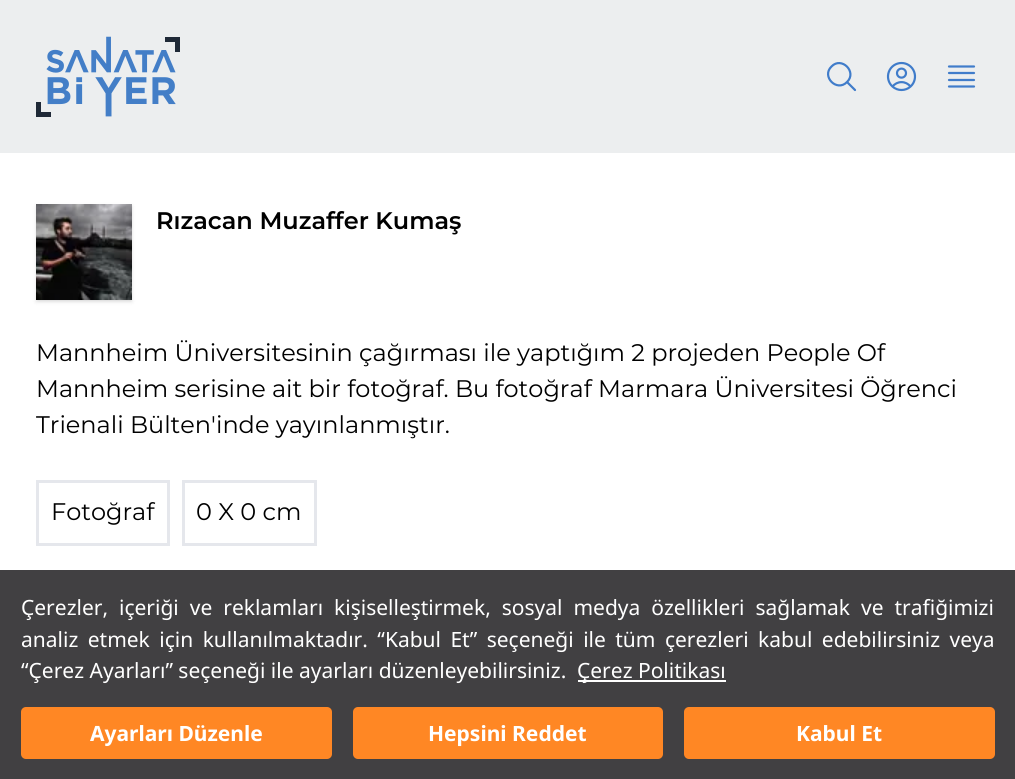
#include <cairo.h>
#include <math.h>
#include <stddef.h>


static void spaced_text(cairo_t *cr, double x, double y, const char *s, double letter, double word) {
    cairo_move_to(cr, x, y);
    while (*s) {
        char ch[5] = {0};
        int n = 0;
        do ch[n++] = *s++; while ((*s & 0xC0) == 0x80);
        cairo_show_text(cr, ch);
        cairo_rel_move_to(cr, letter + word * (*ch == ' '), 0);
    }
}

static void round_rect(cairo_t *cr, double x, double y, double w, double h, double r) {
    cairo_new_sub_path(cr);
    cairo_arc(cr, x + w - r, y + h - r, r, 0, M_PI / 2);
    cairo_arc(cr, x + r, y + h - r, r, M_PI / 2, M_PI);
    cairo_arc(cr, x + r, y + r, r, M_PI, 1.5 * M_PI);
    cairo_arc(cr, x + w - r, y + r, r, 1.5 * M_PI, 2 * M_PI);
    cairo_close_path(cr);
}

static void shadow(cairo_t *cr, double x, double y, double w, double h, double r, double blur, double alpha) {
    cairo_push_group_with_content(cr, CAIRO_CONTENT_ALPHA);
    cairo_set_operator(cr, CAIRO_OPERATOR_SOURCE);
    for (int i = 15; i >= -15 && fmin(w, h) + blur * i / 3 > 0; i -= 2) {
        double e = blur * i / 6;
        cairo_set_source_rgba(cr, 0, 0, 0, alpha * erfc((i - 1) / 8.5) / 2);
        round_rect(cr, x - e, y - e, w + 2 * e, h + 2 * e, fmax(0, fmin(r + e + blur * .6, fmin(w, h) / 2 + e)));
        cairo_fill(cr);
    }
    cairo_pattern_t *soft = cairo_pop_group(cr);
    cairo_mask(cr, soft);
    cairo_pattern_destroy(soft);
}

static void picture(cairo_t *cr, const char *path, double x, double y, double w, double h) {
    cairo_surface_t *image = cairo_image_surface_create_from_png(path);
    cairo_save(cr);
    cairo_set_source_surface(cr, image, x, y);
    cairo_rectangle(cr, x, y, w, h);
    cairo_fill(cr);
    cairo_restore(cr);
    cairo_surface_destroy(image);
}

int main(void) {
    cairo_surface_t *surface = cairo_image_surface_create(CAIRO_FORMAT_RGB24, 1015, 779);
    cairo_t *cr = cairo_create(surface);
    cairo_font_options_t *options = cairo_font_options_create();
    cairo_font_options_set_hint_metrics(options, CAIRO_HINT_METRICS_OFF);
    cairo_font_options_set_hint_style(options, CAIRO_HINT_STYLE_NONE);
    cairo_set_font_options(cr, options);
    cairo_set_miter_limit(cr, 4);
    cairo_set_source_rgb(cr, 1, 1, 1);
    cairo_paint(cr);
    cairo_set_source_rgb(cr, 0.925, 0.933, 0.937);
    cairo_rectangle(cr, 0, 0, 1015, 153);
    cairo_fill(cr);
    picture(cr, "img1.png", 36, 36, 144, 81);
    cairo_new_path(cr);
    cairo_move_to(cr, 855, 90);
    cairo_line_to(cr, 847, 82);
    cairo_move_to(cr, 847, 82);
    cairo_curve_to(cr, 857.5, 72, 841.5, 56, 831.5, 66.5);
    cairo_curve_to(cr, 821, 76.5, 837, 92.5, 847, 82);
    cairo_close_path(cr);
    cairo_set_source_rgb(cr, 0.251, 0.486, 0.792);
    cairo_set_line_width(cr, 2.2);
    cairo_set_line_cap(cr, CAIRO_LINE_CAP_ROUND);
    cairo_set_line_join(cr, CAIRO_LINE_JOIN_ROUND);
    cairo_stroke(cr);
    picture(cr, "img2.png", 886, 61, 31, 31);
    cairo_new_path(cr);
    cairo_move_to(cr, 949, 66.5);
    cairo_line_to(cr, 974, 66.5);
    cairo_move_to(cr, 949, 73);
    cairo_line_to(cr, 974, 73);
    cairo_move_to(cr, 949, 80);
    cairo_line_to(cr, 974, 80);
    cairo_move_to(cr, 949, 86.5);
    cairo_line_to(cr, 974, 86.5);
    cairo_stroke(cr);
    cairo_set_source_rgb(cr, 0, 0, 0);
    shadow(cr, 38, 207, 93, 93, 0, 1.5, 0.1);
    shadow(cr, 36, 206, 96, 96, 0, 2, 0.1);
    picture(cr, "img3.png", 36, 204, 96, 96);
    cairo_select_font_face(cr, "Montserrat SemiBold", CAIRO_FONT_SLANT_NORMAL, CAIRO_FONT_WEIGHT_NORMAL);
    cairo_set_font_size(cr, 24);
    cairo_set_source_rgb(cr, 0, 0, 0);
    cairo_move_to(cr, 156, 229);
    cairo_show_text(cr, "Rızacan Muzaffer Kumaş");
    cairo_select_font_face(cr, "Montserrat", CAIRO_FONT_SLANT_NORMAL, CAIRO_FONT_WEIGHT_NORMAL);
    cairo_move_to(cr, 36, 361);
    cairo_show_text(cr, "Mannheim Üniversitesinin çağırması ile yaptığım 2 projeden People Of");
    cairo_move_to(cr, 36, 397);
    cairo_show_text(cr, "Mannheim serisine ait bir fotoğraf. Bu fotoğraf Marmara Üniversitesi Öğrenci");
    cairo_move_to(cr, 36, 433);
    cairo_show_text(cr, "Trienali Bülten'inde yayınlanmıştır.");
    cairo_rectangle(cr, 37.5, 481.5, 131, 63);
    cairo_set_source_rgb(cr, 0.898, 0.906, 0.922);
    cairo_set_line_width(cr, 3);
    cairo_set_line_cap(cr, CAIRO_LINE_CAP_BUTT);
    cairo_set_line_join(cr, CAIRO_LINE_JOIN_MITER);
    cairo_stroke(cr);
    cairo_set_source_rgb(cr, 0, 0, 0);
    cairo_move_to(cr, 51, 520);
    cairo_show_text(cr, "Fotoğraf");
    cairo_rectangle(cr, 183.5, 481.5, 132, 63);
    cairo_set_source_rgb(cr, 0.898, 0.906, 0.922);
    cairo_stroke(cr);
    cairo_set_source_rgb(cr, 0, 0, 0);
    cairo_move_to(cr, 196, 520);
    cairo_show_text(cr, "0 X 0 cm");
    cairo_set_source_rgb(cr, 0.255, 0.251, 0.259);
    cairo_rectangle(cr, 0, 570, 1015, 209);
    cairo_fill(cr);
    cairo_select_font_face(cr, "Noto Sans", CAIRO_FONT_SLANT_NORMAL, CAIRO_FONT_WEIGHT_NORMAL);
    cairo_set_font_size(cr, 21);
    cairo_set_source_rgb(cr, 1, 1, 1);
    spaced_text(cr, 21, 615, "Çerezler, içeriği ve reklamları kişiselleştirmek, sosyal medya özellikleri sağlamak ve trafiğimizi", 0, 5.5);
    spaced_text(cr, 21, 647, "analiz etmek için kullanılmaktadır. “Kabul Et” seçeneği ile tüm çerezleri kabul edebilirsiniz veya", 0, 4);
    cairo_move_to(cr, 21, 678);
    cairo_show_text(cr, "“Çerez Ayarları” seçeneği ile ayarları düzenleyebilirsiniz.");
    cairo_rectangle(cr, 578, 680, 148, 2);
    cairo_fill(cr);
    cairo_move_to(cr, 577, 678);
    cairo_show_text(cr, "Çerez Politikası");
    cairo_set_source_rgb(cr, 1, 0.529, 0.141);
    round_rect(cr, 21, 707, 311, 52, 5);
    cairo_fill(cr);
    cairo_select_font_face(cr, "Noto Sans", CAIRO_FONT_SLANT_NORMAL, CAIRO_FONT_WEIGHT_BOLD);
    cairo_set_source_rgb(cr, 1, 1, 1);
    cairo_move_to(cr, 90, 741);
    cairo_show_text(cr, "Ayarları Düzenle");
    cairo_set_source_rgb(cr, 1, 0.529, 0.141);
    round_rect(cr, 353, 707, 310, 52, 5);
    cairo_fill(cr);
    cairo_set_source_rgb(cr, 1, 1, 1);
    cairo_move_to(cr, 428, 741);
    cairo_show_text(cr, "Hepsini Reddet");
    cairo_set_source_rgb(cr, 1, 0.529, 0.141);
    round_rect(cr, 684, 707, 311, 52, 5);
    cairo_fill(cr);
    cairo_set_source_rgb(cr, 1, 1, 1);
    cairo_move_to(cr, 796, 741);
    cairo_show_text(cr, "Kabul Et");
    cairo_surface_write_to_png(surface, "page.png");
    cairo_font_options_destroy(options);
    cairo_destroy(cr);
    cairo_surface_destroy(surface);
    return 0;
}
